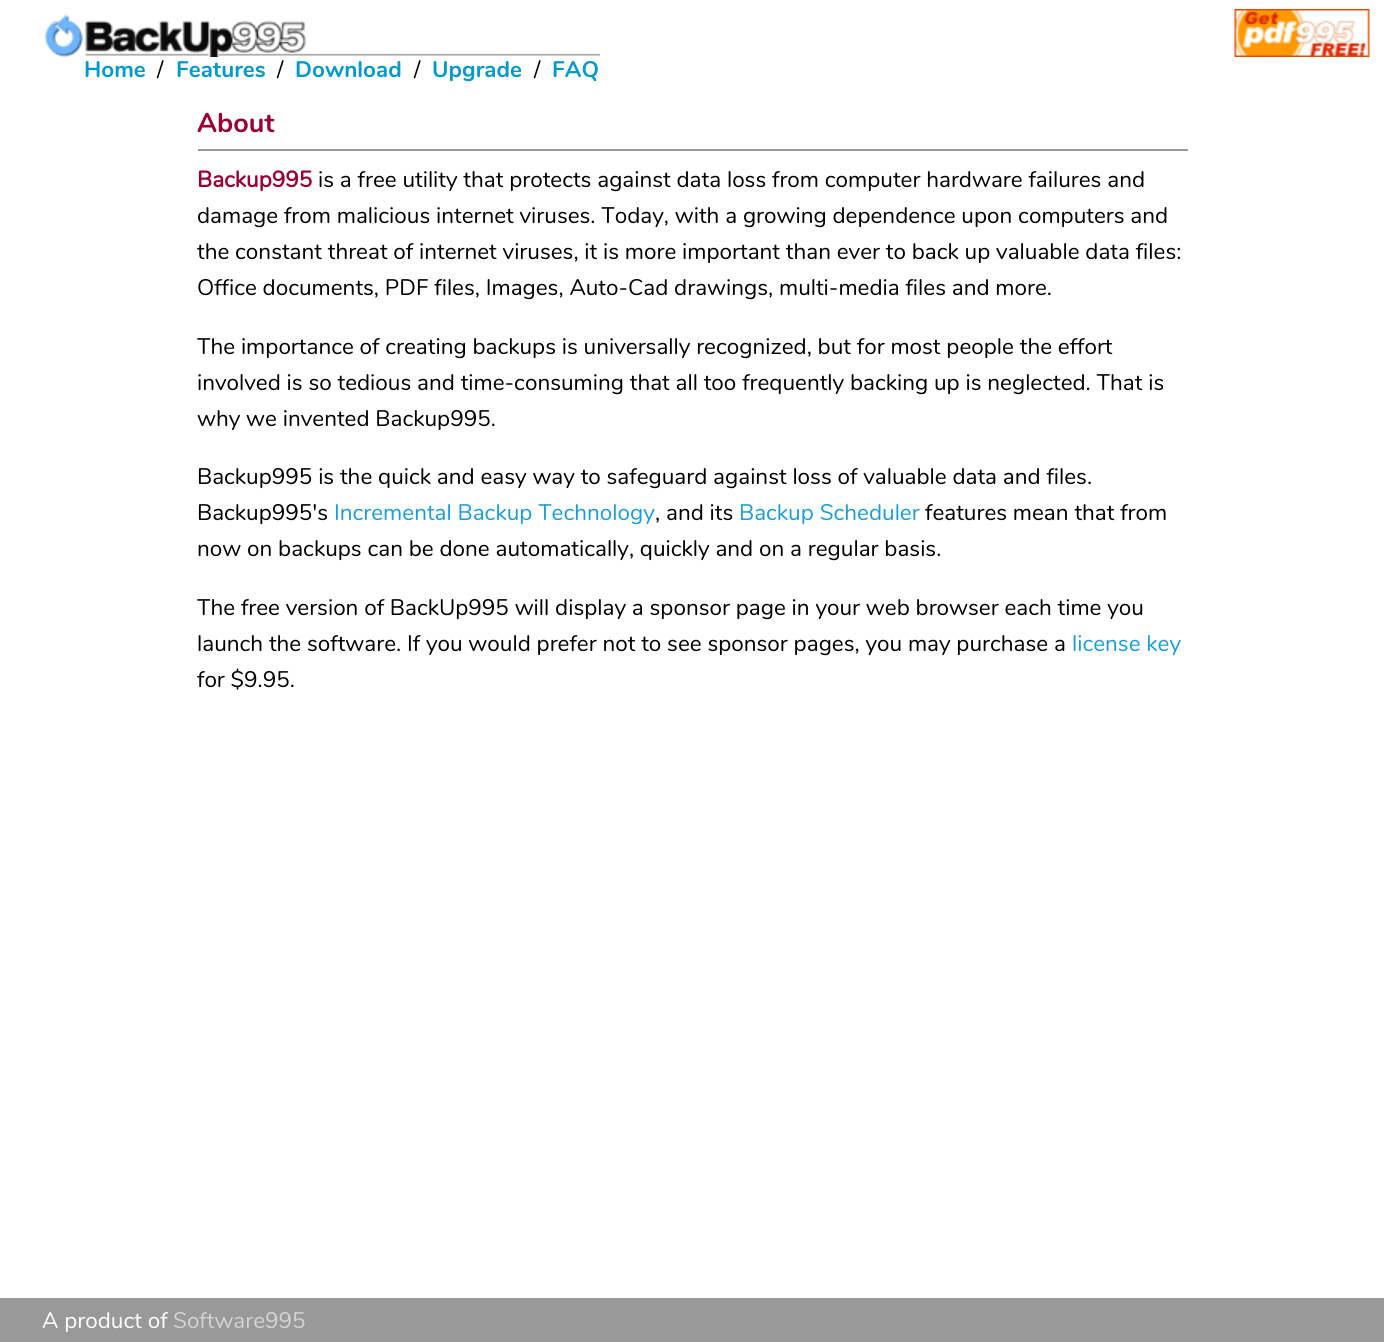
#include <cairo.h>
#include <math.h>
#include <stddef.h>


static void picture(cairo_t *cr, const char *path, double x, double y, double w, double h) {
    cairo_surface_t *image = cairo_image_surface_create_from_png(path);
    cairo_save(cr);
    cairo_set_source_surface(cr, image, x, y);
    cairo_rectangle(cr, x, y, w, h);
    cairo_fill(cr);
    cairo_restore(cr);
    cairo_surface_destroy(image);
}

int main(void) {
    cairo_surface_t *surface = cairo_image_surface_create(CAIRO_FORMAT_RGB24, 1384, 1342);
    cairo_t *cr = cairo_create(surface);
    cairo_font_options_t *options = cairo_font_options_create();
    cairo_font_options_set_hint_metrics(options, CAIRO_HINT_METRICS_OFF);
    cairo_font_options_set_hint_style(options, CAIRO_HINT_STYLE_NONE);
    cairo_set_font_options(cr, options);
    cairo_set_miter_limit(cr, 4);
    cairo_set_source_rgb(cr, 1, 1, 1);
    cairo_paint(cr);
    picture(cr, "img1.png", 45, 14, 555, 43);
    picture(cr, "img2.png", 1234, 9, 136, 48);
    cairo_select_font_face(cr, "Nunito", CAIRO_FONT_SLANT_NORMAL, CAIRO_FONT_WEIGHT_BOLD);
    cairo_set_font_size(cr, 22.5);
    cairo_set_source_rgb(cr, 0, 0.6, 0.8);
    cairo_move_to(cr, 84, 77);
    cairo_show_text(cr, "Home");
    cairo_select_font_face(cr, "Nunito", CAIRO_FONT_SLANT_NORMAL, CAIRO_FONT_WEIGHT_NORMAL);
    cairo_set_source_rgb(cr, 0, 0, 0);
    cairo_move_to(cr, 157, 77);
    cairo_show_text(cr, "/");
    cairo_select_font_face(cr, "Nunito", CAIRO_FONT_SLANT_NORMAL, CAIRO_FONT_WEIGHT_BOLD);
    cairo_set_source_rgb(cr, 0, 0.6, 0.8);
    cairo_move_to(cr, 176, 77);
    cairo_show_text(cr, "Features");
    cairo_select_font_face(cr, "Nunito", CAIRO_FONT_SLANT_NORMAL, CAIRO_FONT_WEIGHT_NORMAL);
    cairo_set_source_rgb(cr, 0, 0, 0);
    cairo_move_to(cr, 277, 77);
    cairo_show_text(cr, "/");
    cairo_select_font_face(cr, "Nunito", CAIRO_FONT_SLANT_NORMAL, CAIRO_FONT_WEIGHT_BOLD);
    cairo_set_source_rgb(cr, 0, 0.6, 0.8);
    cairo_move_to(cr, 295, 77);
    cairo_show_text(cr, "Download");
    cairo_select_font_face(cr, "Nunito", CAIRO_FONT_SLANT_NORMAL, CAIRO_FONT_WEIGHT_NORMAL);
    cairo_set_source_rgb(cr, 0, 0, 0);
    cairo_move_to(cr, 414, 77);
    cairo_show_text(cr, "/");
    cairo_select_font_face(cr, "Nunito", CAIRO_FONT_SLANT_NORMAL, CAIRO_FONT_WEIGHT_BOLD);
    cairo_set_source_rgb(cr, 0, 0.6, 0.8);
    cairo_move_to(cr, 432, 77);
    cairo_show_text(cr, "Upgrade");
    cairo_select_font_face(cr, "Nunito", CAIRO_FONT_SLANT_NORMAL, CAIRO_FONT_WEIGHT_NORMAL);
    cairo_set_source_rgb(cr, 0, 0, 0);
    cairo_move_to(cr, 534, 77);
    cairo_show_text(cr, "/");
    cairo_select_font_face(cr, "Nunito", CAIRO_FONT_SLANT_NORMAL, CAIRO_FONT_WEIGHT_BOLD);
    cairo_set_source_rgb(cr, 0, 0.6, 0.8);
    cairo_move_to(cr, 552, 77);
    cairo_show_text(cr, "FAQ");
    cairo_set_font_size(cr, 27);
    cairo_set_source_rgb(cr, 0.6, 0, 0.2);
    cairo_move_to(cr, 197, 132);
    cairo_show_text(cr, "About");
    cairo_set_source_rgb(cr, 0.6, 0.6, 0.6);
    cairo_rectangle(cr, 198, 149, 990, 2);
    cairo_fill(cr);
    cairo_select_font_face(cr, "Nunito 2", CAIRO_FONT_SLANT_NORMAL, CAIRO_FONT_WEIGHT_BOLD);
    cairo_set_font_size(cr, 22.5);
    cairo_set_source_rgb(cr, 0.6, 0, 0.2);
    cairo_move_to(cr, 197, 187);
    cairo_show_text(cr, "Backup995");
    cairo_select_font_face(cr, "Nunito", CAIRO_FONT_SLANT_NORMAL, CAIRO_FONT_WEIGHT_NORMAL);
    cairo_set_source_rgb(cr, 0, 0, 0);
    cairo_move_to(cr, 318, 187);
    cairo_show_text(cr, "is a free utility that protects against data loss from computer hardware failures and");
    cairo_move_to(cr, 197, 223);
    cairo_show_text(cr, "damage from malicious internet viruses. Today, with a growing dependence upon computers and");
    cairo_move_to(cr, 197, 259);
    cairo_show_text(cr, "the constant threat of internet viruses, it is more important than ever to back up valuable data files:");
    cairo_move_to(cr, 197, 295);
    cairo_show_text(cr, "Office documents, PDF files, Images, Auto-Cad drawings, multi-media files and more.");
    cairo_move_to(cr, 197, 354);
    cairo_show_text(cr, "The importance of creating backups is universally recognized, but for most people the effort");
    cairo_move_to(cr, 197, 390);
    cairo_show_text(cr, "involved is so tedious and time-consuming that all too frequently backing up is neglected. That is");
    cairo_move_to(cr, 197, 426);
    cairo_show_text(cr, "why we invented Backup995.");
    cairo_move_to(cr, 197, 484);
    cairo_show_text(cr, "Backup995 is the quick and easy way to safeguard against loss of valuable data and files.");
    cairo_move_to(cr, 197, 520);
    cairo_show_text(cr, "Backup995's");
    cairo_set_source_rgb(cr, 0.114, 0.612, 0.847);
    cairo_move_to(cr, 334, 520);
    cairo_show_text(cr, "Incremental Backup Technology");
    cairo_set_source_rgb(cr, 0, 0, 0);
    cairo_move_to(cr, 655, 520);
    cairo_show_text(cr, ", and its");
    cairo_set_source_rgb(cr, 0.114, 0.612, 0.847);
    cairo_move_to(cr, 739, 520);
    cairo_show_text(cr, "Backup Scheduler");
    cairo_set_source_rgb(cr, 0, 0, 0);
    cairo_move_to(cr, 925, 520);
    cairo_show_text(cr, "features mean that from");
    cairo_move_to(cr, 197, 556);
    cairo_show_text(cr, "now on backups can be done automatically, quickly and on a regular basis.");
    cairo_move_to(cr, 197, 615);
    cairo_show_text(cr, "The free version of BackUp995 will display a sponsor page in your web browser each time you");
    cairo_move_to(cr, 197, 651);
    cairo_show_text(cr, "launch the software. If you would prefer not to see sponsor pages, you may purchase a");
    cairo_set_source_rgb(cr, 0.114, 0.612, 0.847);
    cairo_move_to(cr, 1072, 651);
    cairo_show_text(cr, "license key");
    cairo_set_source_rgb(cr, 0, 0, 0);
    cairo_move_to(cr, 197, 687);
    cairo_show_text(cr, "for $9.95.");
    cairo_set_source_rgb(cr, 0.6, 0.6, 0.6);
    cairo_rectangle(cr, 0, 1298, 1384, 44);
    cairo_fill(cr);
    cairo_set_source_rgb(cr, 1, 1, 1);
    cairo_move_to(cr, 42, 1328);
    cairo_show_text(cr, "A product of");
    cairo_set_source_rgb(cr, 0.827, 0.827, 0.827);
    cairo_move_to(cr, 173, 1328);
    cairo_show_text(cr, "Software995");
    cairo_surface_write_to_png(surface, "page.png");
    cairo_font_options_destroy(options);
    cairo_destroy(cr);
    cairo_surface_destroy(surface);
    return 0;
}
